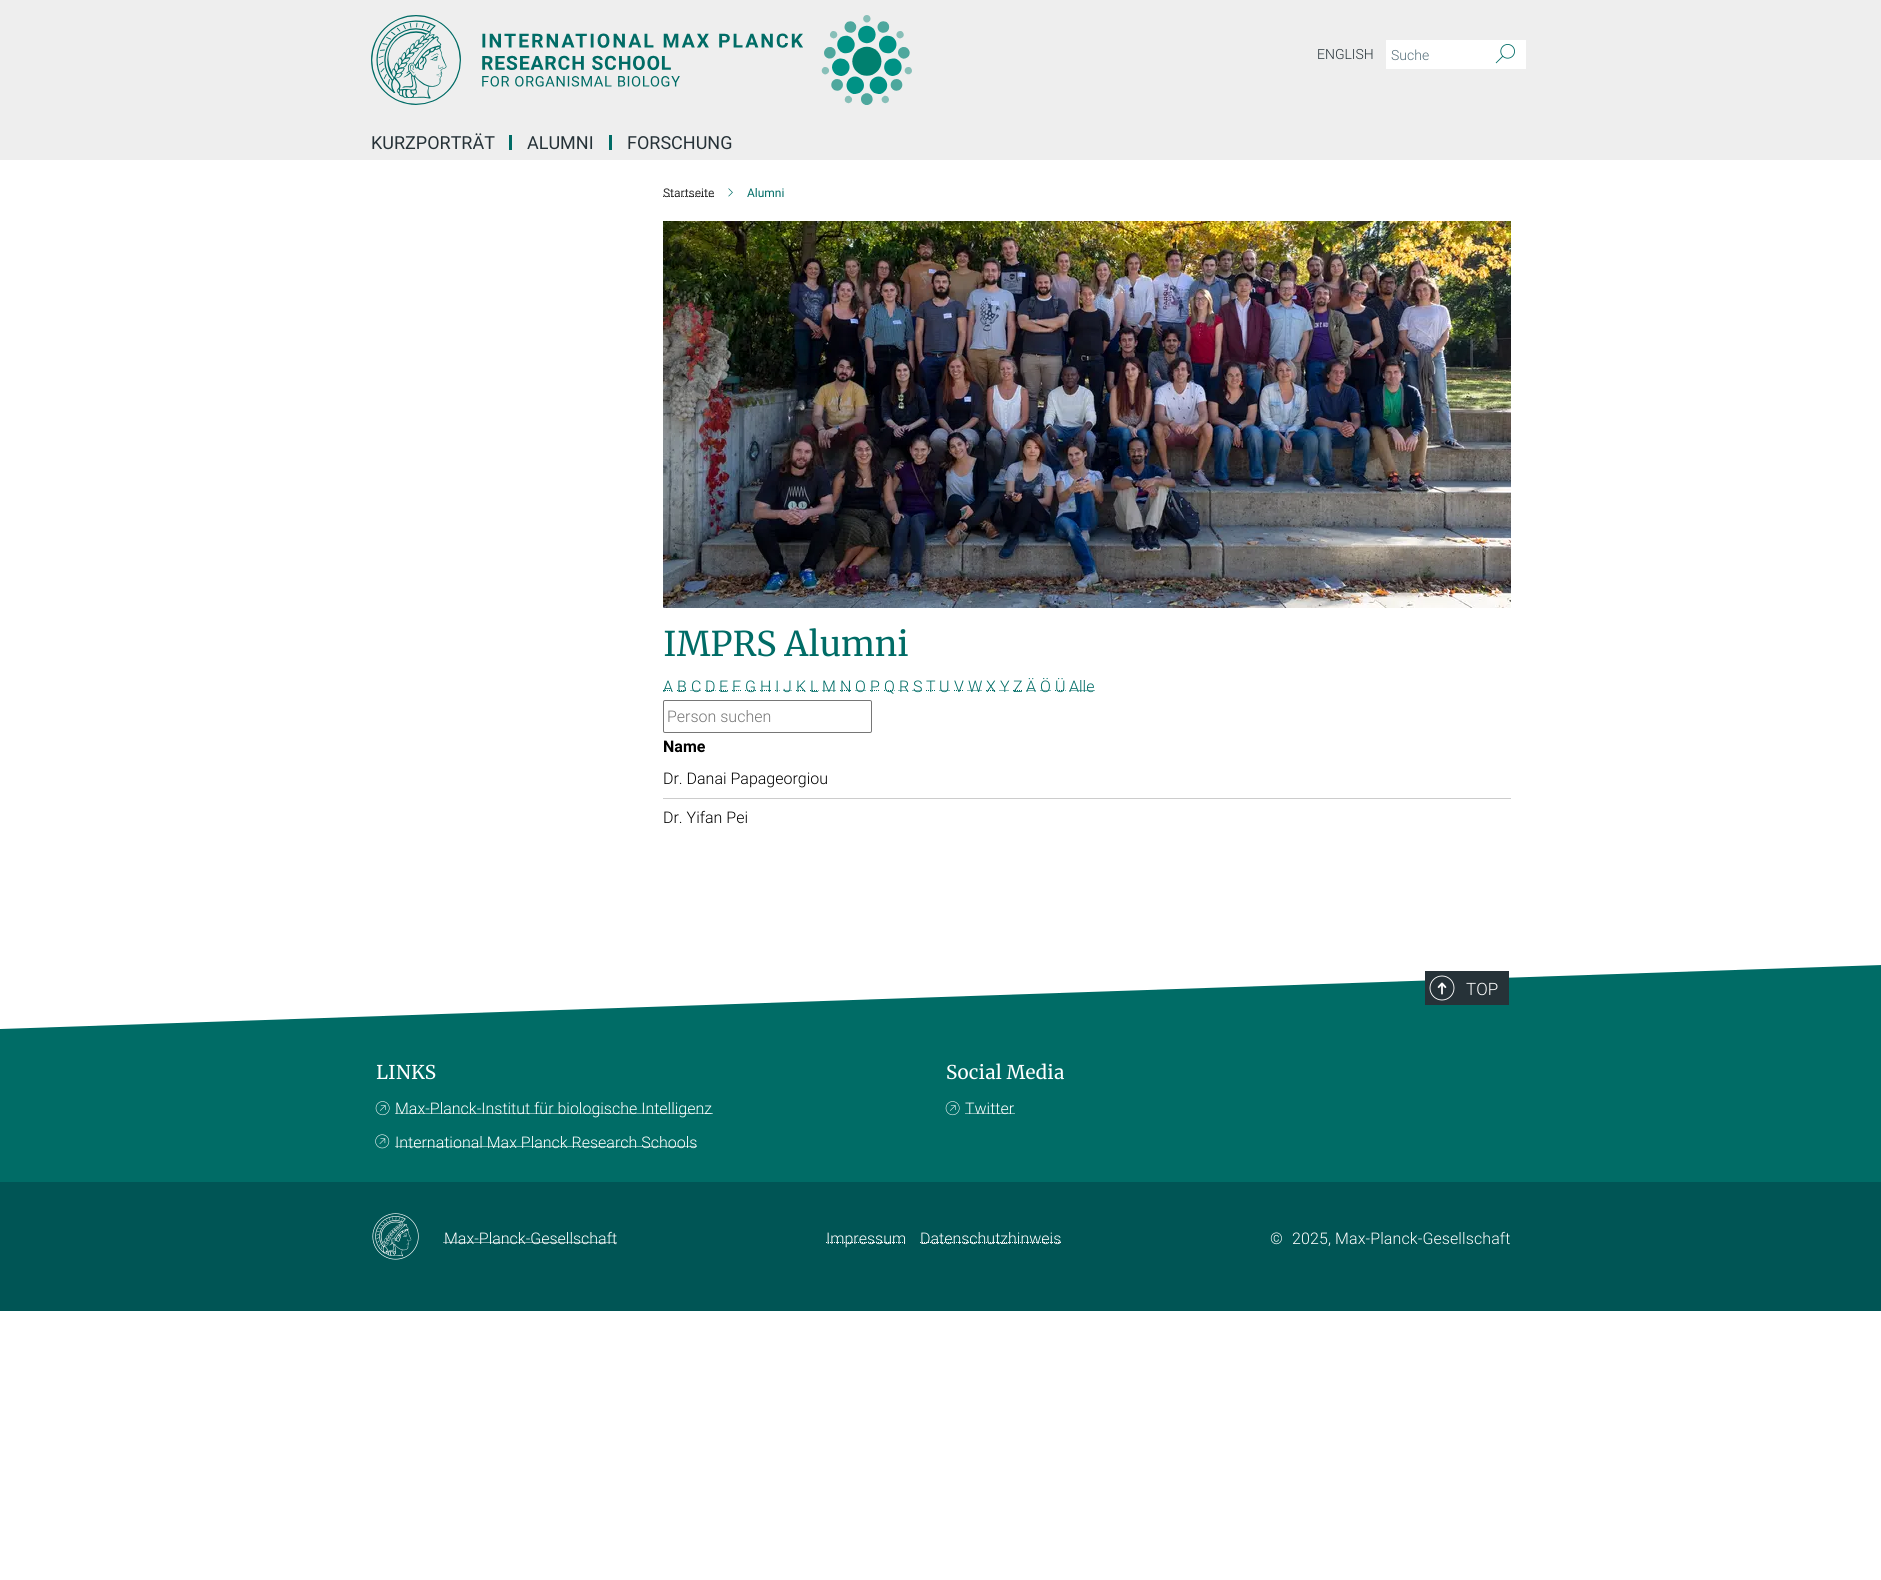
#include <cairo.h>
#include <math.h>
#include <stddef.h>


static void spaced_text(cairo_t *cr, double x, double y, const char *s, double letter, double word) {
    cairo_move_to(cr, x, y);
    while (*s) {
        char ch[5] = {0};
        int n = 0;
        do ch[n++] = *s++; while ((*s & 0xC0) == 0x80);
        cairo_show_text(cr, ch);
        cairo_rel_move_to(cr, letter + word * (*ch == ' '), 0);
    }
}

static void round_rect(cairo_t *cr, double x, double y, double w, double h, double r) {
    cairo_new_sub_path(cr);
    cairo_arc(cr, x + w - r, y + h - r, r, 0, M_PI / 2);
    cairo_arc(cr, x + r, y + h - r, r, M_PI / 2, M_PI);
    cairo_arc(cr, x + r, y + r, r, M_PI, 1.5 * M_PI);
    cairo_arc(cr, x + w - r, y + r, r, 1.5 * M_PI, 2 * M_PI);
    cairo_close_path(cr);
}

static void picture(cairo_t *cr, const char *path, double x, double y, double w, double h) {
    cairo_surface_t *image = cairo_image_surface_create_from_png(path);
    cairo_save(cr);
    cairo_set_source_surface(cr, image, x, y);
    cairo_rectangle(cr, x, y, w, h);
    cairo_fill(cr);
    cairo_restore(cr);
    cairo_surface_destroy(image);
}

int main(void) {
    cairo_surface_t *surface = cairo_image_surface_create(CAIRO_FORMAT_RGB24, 1881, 1580);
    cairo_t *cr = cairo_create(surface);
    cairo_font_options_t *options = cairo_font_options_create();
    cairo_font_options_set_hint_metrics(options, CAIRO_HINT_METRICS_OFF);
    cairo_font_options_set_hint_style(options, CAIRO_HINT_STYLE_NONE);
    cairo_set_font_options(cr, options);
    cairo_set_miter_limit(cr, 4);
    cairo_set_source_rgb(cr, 1, 1, 1);
    cairo_paint(cr);
    cairo_set_source_rgb(cr, 0.933, 0.933, 0.933);
    cairo_rectangle(cr, 0, 0, 1881, 160);
    cairo_fill(cr);
    picture(cr, "img1.png", 371, 15, 541, 90);
    cairo_select_font_face(cr, "Roboto Light", CAIRO_FONT_SLANT_NORMAL, CAIRO_FONT_WEIGHT_NORMAL);
    cairo_set_font_size(cr, 14);
    cairo_set_source_rgb(cr, 0.149, 0.196, 0.22);
    cairo_move_to(cr, 1317, 59);
    cairo_show_text(cr, "ENGLISH");
    cairo_set_source_rgb(cr, 1, 1, 1);
    cairo_rectangle(cr, 1386, 40, 140, 29);
    cairo_fill(cr);
    cairo_set_source_rgb(cr, 0.329, 0.431, 0.478);
    cairo_move_to(cr, 1391, 60);
    cairo_show_text(cr, "Suche");
    picture(cr, "img2.png", 1495, 44, 20, 20);
    cairo_set_source_rgb(cr, 0, 0.424, 0.4);
    cairo_rectangle(cr, 509, 135, 3, 15);
    cairo_fill(cr);
    cairo_select_font_face(cr, "Roboto", CAIRO_FONT_SLANT_NORMAL, CAIRO_FONT_WEIGHT_NORMAL);
    cairo_set_font_size(cr, 18);
    cairo_set_source_rgb(cr, 0.149, 0.196, 0.22);
    cairo_move_to(cr, 371, 149);
    cairo_show_text(cr, "KURZPORTRÄT");
    cairo_set_source_rgb(cr, 0, 0.424, 0.4);
    cairo_rectangle(cr, 609, 135, 3, 15);
    cairo_fill(cr);
    cairo_set_source_rgb(cr, 0.149, 0.196, 0.22);
    cairo_move_to(cr, 527, 149);
    cairo_show_text(cr, "ALUMNI");
    cairo_move_to(cr, 627, 149);
    cairo_show_text(cr, "FORSCHUNG");
    cairo_new_path(cr);
    cairo_move_to(cr, 663, 196.5);
    cairo_line_to(cr, 714.5, 196.5);
    cairo_set_source_rgb(cr, 0.2, 0.2, 0.2);
    cairo_set_line_width(cr, 1);
    cairo_set_dash(cr, (double[]){1, 1}, 2, 0);
    cairo_stroke(cr);
    cairo_set_font_size(cr, 12);
    cairo_move_to(cr, 663, 197);
    cairo_show_text(cr, "Startseite");
    picture(cr, "img3.png", 728, 188, 5, 9);
    cairo_set_source_rgb(cr, 0, 0.424, 0.4);
    cairo_move_to(cr, 747, 197);
    cairo_show_text(cr, "Alumni");
    picture(cr, "img4.png", 663, 221, 848, 387);
    cairo_select_font_face(cr, "Merriweather", CAIRO_FONT_SLANT_NORMAL, CAIRO_FONT_WEIGHT_NORMAL);
    cairo_set_font_size(cr, 34);
    cairo_move_to(cr, 663, 656);
    cairo_show_text(cr, "IMPRS Alumni");
    cairo_new_path(cr);
    cairo_move_to(cr, 663, 690.5);
    cairo_line_to(cr, 673, 690.5);
    cairo_stroke(cr);
    cairo_select_font_face(cr, "Roboto Light", CAIRO_FONT_SLANT_NORMAL, CAIRO_FONT_WEIGHT_NORMAL);
    cairo_set_font_size(cr, 16);
    cairo_move_to(cr, 663, 692);
    cairo_show_text(cr, "A");
    cairo_new_path(cr);
    cairo_move_to(cr, 677, 690.5);
    cairo_line_to(cr, 686.5, 690.5);
    cairo_stroke(cr);
    cairo_move_to(cr, 677, 692);
    cairo_show_text(cr, "B");
    cairo_new_path(cr);
    cairo_move_to(cr, 690.5, 690.5);
    cairo_line_to(cr, 701, 690.5);
    cairo_stroke(cr);
    cairo_move_to(cr, 691, 692);
    cairo_show_text(cr, "C");
    cairo_new_path(cr);
    cairo_move_to(cr, 705, 690.5);
    cairo_line_to(cr, 715.5, 690.5);
    cairo_stroke(cr);
    cairo_move_to(cr, 705, 692);
    cairo_show_text(cr, "D");
    cairo_new_path(cr);
    cairo_move_to(cr, 719, 690.5);
    cairo_line_to(cr, 728.5, 690.5);
    cairo_stroke(cr);
    cairo_move_to(cr, 719, 692);
    cairo_show_text(cr, "E");
    cairo_new_path(cr);
    cairo_move_to(cr, 732, 690.5);
    cairo_line_to(cr, 741, 690.5);
    cairo_stroke(cr);
    cairo_move_to(cr, 732, 692);
    cairo_show_text(cr, "F");
    cairo_new_path(cr);
    cairo_move_to(cr, 745, 690.5);
    cairo_line_to(cr, 756, 690.5);
    cairo_stroke(cr);
    cairo_move_to(cr, 745, 692);
    cairo_show_text(cr, "G");
    cairo_new_path(cr);
    cairo_move_to(cr, 760, 690.5);
    cairo_line_to(cr, 771.5, 690.5);
    cairo_stroke(cr);
    cairo_move_to(cr, 760, 692);
    cairo_show_text(cr, "H");
    cairo_new_path(cr);
    cairo_move_to(cr, 775, 690.5);
    cairo_line_to(cr, 776, 690.5);
    cairo_move_to(cr, 777, 690.5);
    cairo_line_to(cr, 778, 690.5);
    cairo_move_to(cr, 779, 690.5);
    cairo_line_to(cr, 779.5, 690.5);
    cairo_set_dash(cr, NULL, 0, 0);
    cairo_stroke(cr);
    cairo_move_to(cr, 775, 692);
    cairo_show_text(cr, "I");
    cairo_new_path(cr);
    cairo_move_to(cr, 783.5, 690.5);
    cairo_line_to(cr, 792, 690.5);
    cairo_set_dash(cr, (double[]){1, 1}, 2, 0);
    cairo_stroke(cr);
    cairo_move_to(cr, 783, 692);
    cairo_show_text(cr, "J");
    cairo_new_path(cr);
    cairo_move_to(cr, 796, 690.5);
    cairo_line_to(cr, 806, 690.5);
    cairo_stroke(cr);
    cairo_move_to(cr, 796, 692);
    cairo_show_text(cr, "K");
    cairo_new_path(cr);
    cairo_move_to(cr, 810, 690.5);
    cairo_line_to(cr, 818.5, 690.5);
    cairo_stroke(cr);
    cairo_move_to(cr, 810, 692);
    cairo_show_text(cr, "L");
    cairo_new_path(cr);
    cairo_move_to(cr, 822.5, 690.5);
    cairo_line_to(cr, 836, 690.5);
    cairo_stroke(cr);
    cairo_move_to(cr, 822, 692);
    cairo_show_text(cr, "M");
    cairo_new_path(cr);
    cairo_move_to(cr, 840, 690.5);
    cairo_line_to(cr, 851.5, 690.5);
    cairo_stroke(cr);
    cairo_move_to(cr, 840, 692);
    cairo_show_text(cr, "N");
    cairo_new_path(cr);
    cairo_move_to(cr, 855.5, 690.5);
    cairo_line_to(cr, 866, 690.5);
    cairo_stroke(cr);
    cairo_move_to(cr, 855, 692);
    cairo_show_text(cr, "O");
    cairo_new_path(cr);
    cairo_move_to(cr, 870, 690.5);
    cairo_line_to(cr, 880, 690.5);
    cairo_stroke(cr);
    cairo_move_to(cr, 870, 692);
    cairo_show_text(cr, "P");
    cairo_new_path(cr);
    cairo_move_to(cr, 884, 690.5);
    cairo_line_to(cr, 894.5, 690.5);
    cairo_stroke(cr);
    cairo_move_to(cr, 884, 692);
    cairo_show_text(cr, "Q");
    cairo_new_path(cr);
    cairo_move_to(cr, 898.5, 690.5);
    cairo_line_to(cr, 908.5, 690.5);
    cairo_stroke(cr);
    cairo_move_to(cr, 899, 692);
    cairo_show_text(cr, "R");
    cairo_new_path(cr);
    cairo_move_to(cr, 912.5, 690.5);
    cairo_line_to(cr, 922, 690.5);
    cairo_stroke(cr);
    cairo_move_to(cr, 913, 692);
    cairo_show_text(cr, "S");
    cairo_new_path(cr);
    cairo_move_to(cr, 926, 690.5);
    cairo_line_to(cr, 935.5, 690.5);
    cairo_stroke(cr);
    cairo_move_to(cr, 926, 692);
    cairo_show_text(cr, "T");
    cairo_new_path(cr);
    cairo_move_to(cr, 939.5, 690.5);
    cairo_line_to(cr, 950, 690.5);
    cairo_stroke(cr);
    cairo_move_to(cr, 939, 692);
    cairo_show_text(cr, "U");
    cairo_new_path(cr);
    cairo_move_to(cr, 954, 690.5);
    cairo_line_to(cr, 963.5, 690.5);
    cairo_stroke(cr);
    cairo_move_to(cr, 954, 692);
    cairo_show_text(cr, "V");
    cairo_new_path(cr);
    cairo_move_to(cr, 967.5, 690.5);
    cairo_line_to(cr, 982, 690.5);
    cairo_stroke(cr);
    cairo_move_to(cr, 968, 692);
    cairo_show_text(cr, "W");
    cairo_new_path(cr);
    cairo_move_to(cr, 986, 690.5);
    cairo_line_to(cr, 995.5, 690.5);
    cairo_stroke(cr);
    cairo_move_to(cr, 986, 692);
    cairo_show_text(cr, "X");
    cairo_new_path(cr);
    cairo_move_to(cr, 999.5, 690.5);
    cairo_line_to(cr, 1009, 690.5);
    cairo_stroke(cr);
    cairo_move_to(cr, 1000, 692);
    cairo_show_text(cr, "Y");
    cairo_new_path(cr);
    cairo_move_to(cr, 1013, 690.5);
    cairo_line_to(cr, 1022.5, 690.5);
    cairo_stroke(cr);
    cairo_move_to(cr, 1013, 692);
    cairo_show_text(cr, "Z");
    cairo_new_path(cr);
    cairo_move_to(cr, 1026.5, 690.5);
    cairo_line_to(cr, 1036.5, 690.5);
    cairo_stroke(cr);
    cairo_move_to(cr, 1026, 692);
    cairo_show_text(cr, "Ä");
    cairo_new_path(cr);
    cairo_move_to(cr, 1040.5, 690.5);
    cairo_line_to(cr, 1051, 690.5);
    cairo_stroke(cr);
    cairo_move_to(cr, 1040, 692);
    cairo_show_text(cr, "Ö");
    cairo_new_path(cr);
    cairo_move_to(cr, 1055, 690.5);
    cairo_line_to(cr, 1065.5, 690.5);
    cairo_stroke(cr);
    cairo_move_to(cr, 1055, 692);
    cairo_show_text(cr, "Ü");
    cairo_new_path(cr);
    cairo_move_to(cr, 1069.5, 690.5);
    cairo_line_to(cr, 1095, 690.5);
    cairo_stroke(cr);
    cairo_move_to(cr, 1069, 692);
    cairo_show_text(cr, "Alle");
    round_rect(cr, 663.5, 700.5, 208, 32, 1.5);
    cairo_set_source_rgb(cr, 0.463, 0.463, 0.463);
    cairo_set_dash(cr, NULL, 0, 0);
    cairo_stroke(cr);
    cairo_set_source_rgb(cr, 0.459, 0.459, 0.459);
    cairo_move_to(cr, 667, 722);
    cairo_show_text(cr, "Person suchen");
    cairo_select_font_face(cr, "Roboto", CAIRO_FONT_SLANT_NORMAL, CAIRO_FONT_WEIGHT_BOLD);
    cairo_set_source_rgb(cr, 0, 0, 0);
    cairo_move_to(cr, 663, 752);
    cairo_show_text(cr, "Name");
    cairo_set_source_rgb(cr, 0.8, 0.8, 0.8);
    cairo_rectangle(cr, 663, 798, 848, 1);
    cairo_fill(cr);
    cairo_select_font_face(cr, "Roboto Light", CAIRO_FONT_SLANT_NORMAL, CAIRO_FONT_WEIGHT_NORMAL);
    cairo_set_source_rgb(cr, 0, 0, 0);
    cairo_move_to(cr, 663, 784);
    cairo_show_text(cr, "Dr. Danai Papageorgiou");
    cairo_move_to(cr, 663, 823);
    cairo_show_text(cr, "Dr. Yifan Pei");
    cairo_set_source_rgb(cr, 0, 0.424, 0.4);
    cairo_rectangle(cr, 0, 1035, 1881, 147);
    cairo_fill(cr);
    cairo_new_path(cr);
    cairo_move_to(cr, 0, 1029);
    cairo_line_to(cr, 1881, 965);
    cairo_line_to(cr, 1881, 1035);
    cairo_line_to(cr, 0, 1035);
    cairo_fill(cr);
    cairo_set_source_rgb(cr, 0.149, 0.196, 0.22);
    cairo_rectangle(cr, 1425, 971, 84, 34);
    cairo_fill(cr);
    picture(cr, "img5.png", 1437, 982, 10, 13);
    picture(cr, "img6.png", 1429, 975, 26, 26);
    cairo_set_font_size(cr, 17);
    cairo_set_source_rgb(cr, 1, 1, 1);
    cairo_move_to(cr, 1466, 995);
    cairo_show_text(cr, "TOP");
    cairo_select_font_face(cr, "Merriweather", CAIRO_FONT_SLANT_NORMAL, CAIRO_FONT_WEIGHT_NORMAL);
    cairo_set_font_size(cr, 19);
    cairo_move_to(cr, 376, 1079);
    cairo_show_text(cr, "LINKS");
    picture(cr, "img7.png", 375, 1101, 15, 15);
    cairo_new_path(cr);
    cairo_move_to(cr, 395.5, 1113.5);
    cairo_line_to(cr, 712.5, 1113.5);
    cairo_set_dash(cr, (double[]){1, 1}, 2, 0);
    cairo_stroke(cr);
    cairo_select_font_face(cr, "Roboto Light", CAIRO_FONT_SLANT_NORMAL, CAIRO_FONT_WEIGHT_NORMAL);
    cairo_set_font_size(cr, 16);
    cairo_move_to(cr, 395, 1114);
    cairo_show_text(cr, "Max-Planck-Institut für biologische Intelligenz");
    picture(cr, "img8.png", 375, 1134, 15, 15);
    cairo_new_path(cr);
    cairo_move_to(cr, 395.5, 1146.5);
    cairo_line_to(cr, 697.5, 1146.5);
    cairo_stroke(cr);
    cairo_move_to(cr, 395, 1148);
    cairo_show_text(cr, "International Max Planck Research Schools");
    cairo_select_font_face(cr, "Merriweather", CAIRO_FONT_SLANT_NORMAL, CAIRO_FONT_WEIGHT_NORMAL);
    cairo_set_font_size(cr, 19);
    cairo_move_to(cr, 946, 1079);
    cairo_show_text(cr, "Social Media");
    picture(cr, "img7.png", 945, 1101, 15, 15);
    cairo_new_path(cr);
    cairo_move_to(cr, 965.5, 1113.5);
    cairo_line_to(cr, 1014.5, 1113.5);
    cairo_stroke(cr);
    cairo_select_font_face(cr, "Roboto Light", CAIRO_FONT_SLANT_NORMAL, CAIRO_FONT_WEIGHT_NORMAL);
    cairo_set_font_size(cr, 16);
    cairo_move_to(cr, 965, 1114);
    cairo_show_text(cr, "Twitter");
    cairo_set_source_rgb(cr, 0, 0.333, 0.333);
    cairo_rectangle(cr, 0, 1182, 1881, 129);
    cairo_fill(cr);
    picture(cr, "img9.png", 372, 1213, 47, 47);
    cairo_new_path(cr);
    cairo_move_to(cr, 443.5, 1242.5);
    cairo_line_to(cr, 617, 1242.5);
    cairo_set_source_rgb(cr, 1, 1, 1);
    cairo_stroke(cr);
    cairo_move_to(cr, 444, 1244);
    cairo_show_text(cr, "Max-Planck-Gesellschaft");
    cairo_new_path(cr);
    cairo_move_to(cr, 826, 1242.5);
    cairo_line_to(cr, 906, 1242.5);
    cairo_stroke(cr);
    cairo_move_to(cr, 826, 1244);
    cairo_show_text(cr, "Impressum");
    cairo_new_path(cr);
    cairo_move_to(cr, 920, 1242.5);
    cairo_line_to(cr, 1061.5, 1242.5);
    cairo_stroke(cr);
    cairo_move_to(cr, 920, 1244);
    cairo_show_text(cr, "Datenschutzhinweis");
    cairo_move_to(cr, 1270, 1244);
    cairo_show_text(cr, "©");
    spaced_text(cr, 1292, 1244, "2025, Max-Planck-Gesellschaft", 0.1, 0);
    cairo_surface_write_to_png(surface, "page.png");
    cairo_font_options_destroy(options);
    cairo_destroy(cr);
    cairo_surface_destroy(surface);
    return 0;
}
